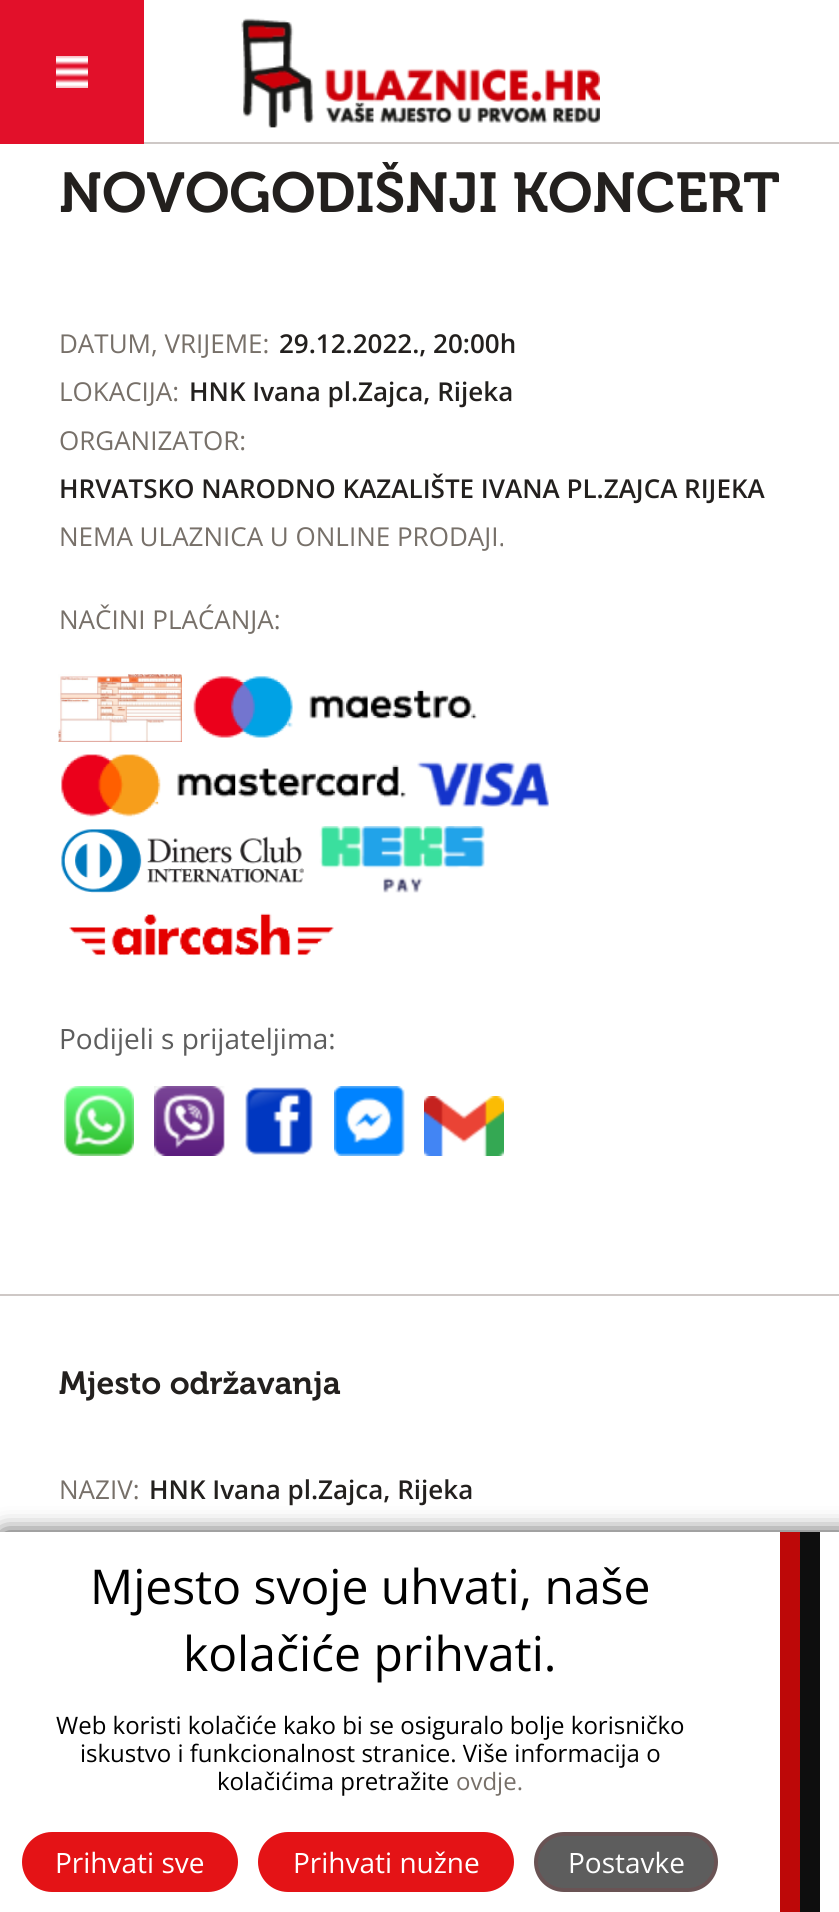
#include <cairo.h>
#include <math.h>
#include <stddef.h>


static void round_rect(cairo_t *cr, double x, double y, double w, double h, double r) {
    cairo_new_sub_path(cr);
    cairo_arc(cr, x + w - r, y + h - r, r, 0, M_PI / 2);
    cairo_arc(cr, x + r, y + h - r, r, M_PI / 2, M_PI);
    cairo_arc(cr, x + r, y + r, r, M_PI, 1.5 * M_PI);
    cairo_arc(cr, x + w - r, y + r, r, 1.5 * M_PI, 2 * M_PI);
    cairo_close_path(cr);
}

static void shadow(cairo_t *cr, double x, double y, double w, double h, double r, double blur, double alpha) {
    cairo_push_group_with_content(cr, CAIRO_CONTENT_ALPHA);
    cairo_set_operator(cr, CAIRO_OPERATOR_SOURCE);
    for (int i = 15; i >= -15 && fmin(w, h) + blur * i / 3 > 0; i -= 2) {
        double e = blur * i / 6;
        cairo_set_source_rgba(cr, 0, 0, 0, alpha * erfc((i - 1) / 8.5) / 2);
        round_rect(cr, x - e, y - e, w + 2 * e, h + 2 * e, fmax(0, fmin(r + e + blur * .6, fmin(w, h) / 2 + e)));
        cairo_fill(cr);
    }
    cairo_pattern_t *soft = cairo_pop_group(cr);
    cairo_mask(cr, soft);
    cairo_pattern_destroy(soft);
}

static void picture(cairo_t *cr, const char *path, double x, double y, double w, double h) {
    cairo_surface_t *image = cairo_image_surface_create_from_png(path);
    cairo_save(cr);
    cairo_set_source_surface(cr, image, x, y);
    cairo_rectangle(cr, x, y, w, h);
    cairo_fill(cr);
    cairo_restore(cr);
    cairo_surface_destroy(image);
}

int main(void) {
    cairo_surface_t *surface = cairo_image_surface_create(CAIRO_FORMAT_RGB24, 839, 1912);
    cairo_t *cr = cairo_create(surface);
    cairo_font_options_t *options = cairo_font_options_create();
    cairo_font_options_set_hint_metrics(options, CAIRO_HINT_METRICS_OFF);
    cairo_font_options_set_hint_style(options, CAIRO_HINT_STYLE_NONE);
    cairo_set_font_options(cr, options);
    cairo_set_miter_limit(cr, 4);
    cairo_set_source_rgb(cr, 1, 1, 1);
    cairo_paint(cr);
    cairo_set_source_rgb(cr, 0.808, 0.784, 0.776);
    cairo_rectangle(cr, 144, 142, 695, 2);
    cairo_fill(cr);
    cairo_set_source_rgb(cr, 0.886, 0.063, 0.165);
    cairo_rectangle(cr, 0, 0, 144, 144);
    cairo_fill(cr);
    picture(cr, "img1.png", 56, 56, 32, 32);
    picture(cr, "img2.png", 241, 18, 359, 110);
    cairo_select_font_face(cr, "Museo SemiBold", CAIRO_FONT_SLANT_NORMAL, CAIRO_FONT_WEIGHT_NORMAL);
    cairo_set_font_size(cr, 56);
    cairo_set_source_rgb(cr, 0.137, 0.125, 0.118);
    cairo_move_to(cr, 59, 212);
    cairo_show_text(cr, "NOVOGODIŠNJI KONCERT");
    cairo_set_source_rgb(cr, 0.808, 0.784, 0.776);
    cairo_rectangle(cr, 0, 1294, 839, 2);
    cairo_fill(cr);
    cairo_select_font_face(cr, "Open Sans", CAIRO_FONT_SLANT_NORMAL, CAIRO_FONT_WEIGHT_NORMAL);
    cairo_set_font_size(cr, 26);
    cairo_set_source_rgb(cr, 0.467, 0.439, 0.412);
    cairo_move_to(cr, 59, 353);
    cairo_show_text(cr, "DATUM, VRIJEME:");
    cairo_select_font_face(cr, "Open Sans SemiBold", CAIRO_FONT_SLANT_NORMAL, CAIRO_FONT_WEIGHT_NORMAL);
    cairo_set_source_rgb(cr, 0.137, 0.125, 0.118);
    cairo_move_to(cr, 279, 353);
    cairo_show_text(cr, "29.12.2022., 20:00h");
    cairo_select_font_face(cr, "Open Sans", CAIRO_FONT_SLANT_NORMAL, CAIRO_FONT_WEIGHT_NORMAL);
    cairo_set_source_rgb(cr, 0.467, 0.439, 0.412);
    cairo_move_to(cr, 59, 401);
    cairo_show_text(cr, "LOKACIJA:");
    cairo_select_font_face(cr, "Open Sans SemiBold", CAIRO_FONT_SLANT_NORMAL, CAIRO_FONT_WEIGHT_NORMAL);
    cairo_set_source_rgb(cr, 0.137, 0.125, 0.118);
    cairo_move_to(cr, 189, 401);
    cairo_show_text(cr, "HNK Ivana pl.Zajca, Rijeka");
    cairo_select_font_face(cr, "Open Sans", CAIRO_FONT_SLANT_NORMAL, CAIRO_FONT_WEIGHT_NORMAL);
    cairo_set_source_rgb(cr, 0.467, 0.439, 0.412);
    cairo_move_to(cr, 59, 450);
    cairo_show_text(cr, "ORGANIZATOR:");
    cairo_select_font_face(cr, "Open Sans SemiBold", CAIRO_FONT_SLANT_NORMAL, CAIRO_FONT_WEIGHT_NORMAL);
    cairo_set_source_rgb(cr, 0.137, 0.125, 0.118);
    cairo_move_to(cr, 59, 498);
    cairo_show_text(cr, "HRVATSKO NARODNO KAZALIŠTE IVANA PL.ZAJCA RIJEKA");
    cairo_select_font_face(cr, "Open Sans", CAIRO_FONT_SLANT_NORMAL, CAIRO_FONT_WEIGHT_NORMAL);
    cairo_set_source_rgb(cr, 0.467, 0.439, 0.412);
    cairo_move_to(cr, 59, 546);
    cairo_show_text(cr, "NEMA ULAZNICA U ONLINE PRODAJI.");
    cairo_move_to(cr, 59, 629);
    cairo_show_text(cr, "NAČINI PLAĆANJA:");
    picture(cr, "img3.png", 58, 674, 124, 68);
    picture(cr, "img4.png", 193, 676, 284, 62);
    picture(cr, "img5.png", 61, 754, 345, 63);
    picture(cr, "img6.png", 417, 761, 132, 46);
    picture(cr, "img7.png", 61, 829, 243, 64);
    picture(cr, "img8.png", 319, 826, 166, 67);
    picture(cr, "img9.png", 69, 913, 265, 43);
    cairo_set_font_size(cr, 28);
    cairo_set_source_rgb(cr, 0.365, 0.365, 0.365);
    cairo_move_to(cr, 59, 1049);
    cairo_show_text(cr, "Podijeli s prijateljima:");
    picture(cr, "img10.png", 64, 1086, 70, 70);
    picture(cr, "img11.png", 154, 1086, 71, 70);
    picture(cr, "img12.png", 245, 1087, 68, 68);
    picture(cr, "img13.png", 334, 1086, 71, 70);
    picture(cr, "img14.png", 424, 1096, 80, 60);
    cairo_select_font_face(cr, "Museo SemiBold", CAIRO_FONT_SLANT_NORMAL, CAIRO_FONT_WEIGHT_NORMAL);
    cairo_set_font_size(cr, 32);
    cairo_set_source_rgb(cr, 0.137, 0.125, 0.118);
    cairo_move_to(cr, 59, 1394);
    cairo_show_text(cr, "Mjesto održavanja");
    cairo_select_font_face(cr, "Open Sans", CAIRO_FONT_SLANT_NORMAL, CAIRO_FONT_WEIGHT_NORMAL);
    cairo_set_font_size(cr, 26);
    cairo_set_source_rgb(cr, 0.467, 0.439, 0.412);
    cairo_move_to(cr, 59, 1499);
    cairo_show_text(cr, "NAZIV:");
    cairo_select_font_face(cr, "Open Sans SemiBold", CAIRO_FONT_SLANT_NORMAL, CAIRO_FONT_WEIGHT_NORMAL);
    cairo_set_source_rgb(cr, 0.137, 0.125, 0.118);
    cairo_move_to(cr, 149, 1499);
    cairo_show_text(cr, "HNK Ivana pl.Zajca, Rijeka");
    cairo_set_source_rgb(cr, 0, 0, 0);
    shadow(cr, 4, 1536, 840, 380, 0, 12, 1);
    cairo_set_source_rgb(cr, 1, 1, 1);
    cairo_rectangle(cr, 0, 1532, 839, 380);
    cairo_fill(cr);
    cairo_select_font_face(cr, "Open Sans", CAIRO_FONT_SLANT_NORMAL, CAIRO_FONT_WEIGHT_NORMAL);
    cairo_set_font_size(cr, 48);
    cairo_set_source_rgb(cr, 0, 0, 0);
    cairo_move_to(cr, 90, 1604);
    cairo_show_text(cr, "Mjesto svoje uhvati, naše");
    cairo_move_to(cr, 183, 1671);
    cairo_show_text(cr, "kolačiće prihvati.");
    cairo_set_font_size(cr, 24);
    cairo_move_to(cr, 56, 1734);
    cairo_show_text(cr, "Web koristi kolačiće kako bi se osiguralo bolje korisničko");
    cairo_move_to(cr, 80, 1762);
    cairo_show_text(cr, "iskustvo i funkcionalnost stranice. Više informacija o");
    cairo_move_to(cr, 217, 1790);
    cairo_show_text(cr, "kolačićima pretražite");
    cairo_set_source_rgb(cr, 0.467, 0.439, 0.412);
    cairo_move_to(cr, 456, 1790);
    cairo_show_text(cr, "ovdje.");
    cairo_set_source_rgb(cr, 0.894, 0.075, 0.086);
    round_rect(cr, 24, 1834, 212, 56, 28);
    cairo_fill_preserve(cr);
    cairo_set_line_width(cr, 4);
    cairo_stroke(cr);
    cairo_set_font_size(cr, 28);
    cairo_set_source_rgb(cr, 1, 1, 1);
    cairo_move_to(cr, 55, 1873);
    cairo_show_text(cr, "Prihvati sve");
    cairo_set_source_rgb(cr, 0.894, 0.075, 0.086);
    round_rect(cr, 260, 1834, 252, 56, 28);
    cairo_fill_preserve(cr);
    cairo_stroke(cr);
    cairo_set_source_rgb(cr, 1, 1, 1);
    cairo_move_to(cr, 293, 1873);
    cairo_show_text(cr, "Prihvati nužne");
    cairo_set_source_rgb(cr, 0.365, 0.365, 0.365);
    round_rect(cr, 536, 1834, 180, 56, 28);
    cairo_fill_preserve(cr);
    cairo_set_source_rgb(cr, 0.412, 0.325, 0.329);
    cairo_stroke(cr);
    cairo_set_source_rgb(cr, 1, 1, 1);
    cairo_move_to(cr, 568, 1873);
    cairo_show_text(cr, "Postavke");
    cairo_set_source_rgb(cr, 0.741, 0.035, 0.035);
    cairo_rectangle(cr, 780, 1532, 20, 380);
    cairo_fill(cr);
    cairo_set_source_rgb(cr, 0.055, 0.055, 0.055);
    cairo_rectangle(cr, 800, 1532, 20, 380);
    cairo_fill(cr);
    cairo_surface_write_to_png(surface, "page.png");
    cairo_font_options_destroy(options);
    cairo_destroy(cr);
    cairo_surface_destroy(surface);
    return 0;
}
